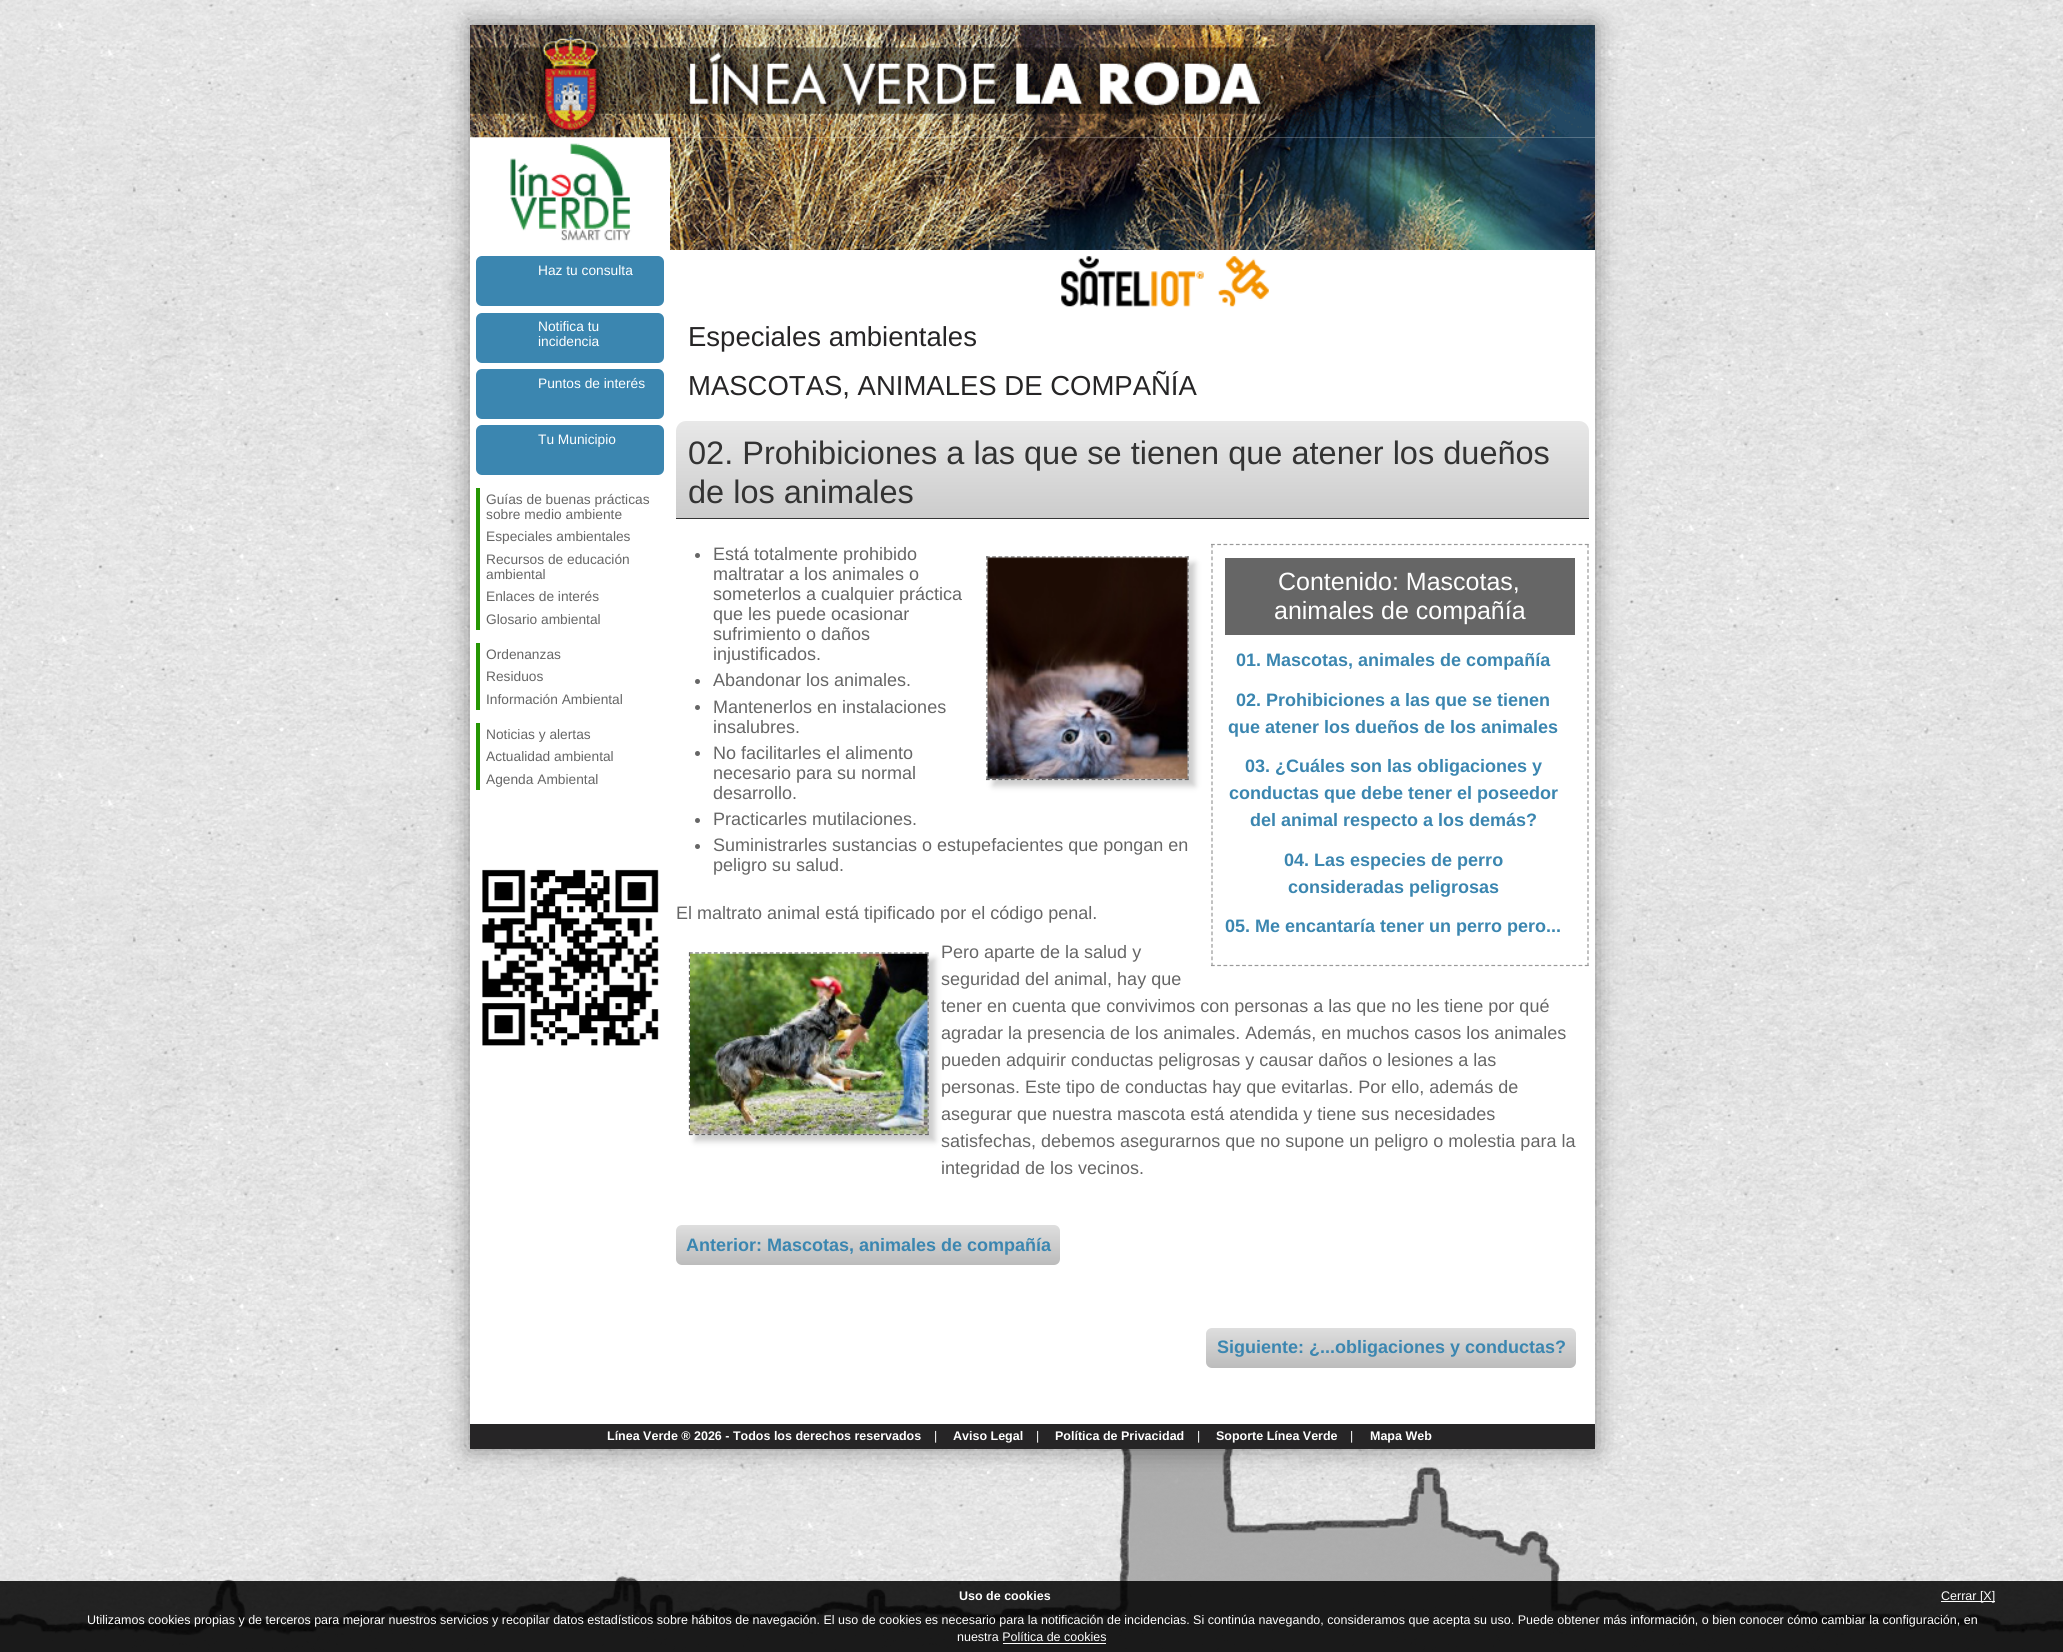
#include <cairo.h>
#include <math.h>
#include <stddef.h>


static void round_rect(cairo_t *cr, double x, double y, double w, double h, double r) {
    cairo_new_sub_path(cr);
    cairo_arc(cr, x + w - r, y + h - r, r, 0, M_PI / 2);
    cairo_arc(cr, x + r, y + h - r, r, M_PI / 2, M_PI);
    cairo_arc(cr, x + r, y + r, r, M_PI, 1.5 * M_PI);
    cairo_arc(cr, x + w - r, y + r, r, 1.5 * M_PI, 2 * M_PI);
    cairo_close_path(cr);
}

static void shadow(cairo_t *cr, double x, double y, double w, double h, double r, double blur, double alpha) {
    cairo_push_group_with_content(cr, CAIRO_CONTENT_ALPHA);
    cairo_set_operator(cr, CAIRO_OPERATOR_SOURCE);
    for (int i = 15; i >= -15 && fmin(w, h) + blur * i / 3 > 0; i -= 2) {
        double e = blur * i / 6;
        cairo_set_source_rgba(cr, 0, 0, 0, alpha * erfc((i - 1) / 8.5) / 2);
        round_rect(cr, x - e, y - e, w + 2 * e, h + 2 * e, fmax(0, fmin(r + e + blur * .6, fmin(w, h) / 2 + e)));
        cairo_fill(cr);
    }
    cairo_pattern_t *soft = cairo_pop_group(cr);
    cairo_mask(cr, soft);
    cairo_pattern_destroy(soft);
}

static void picture(cairo_t *cr, const char *path, double x, double y, double w, double h) {
    cairo_surface_t *image = cairo_image_surface_create_from_png(path);
    cairo_save(cr);
    cairo_set_source_surface(cr, image, x, y);
    cairo_rectangle(cr, x, y, w, h);
    cairo_fill(cr);
    cairo_restore(cr);
    cairo_surface_destroy(image);
}

int main(void) {
    cairo_surface_t *surface = cairo_image_surface_create(CAIRO_FORMAT_RGB24, 2063, 1652);
    cairo_t *cr = cairo_create(surface);
    cairo_font_options_t *options = cairo_font_options_create();
    cairo_font_options_set_hint_metrics(options, CAIRO_HINT_METRICS_OFF);
    cairo_font_options_set_hint_style(options, CAIRO_HINT_STYLE_NONE);
    cairo_set_font_options(cr, options);
    cairo_set_miter_limit(cr, 4);
    cairo_pattern_t *gradient;
    cairo_set_source_rgb(cr, 1, 1, 1);
    cairo_paint(cr);
    picture(cr, "img1.png", 0, 0, 2063, 1652);
    cairo_set_source_rgb(cr, 0, 0, 0);
    shadow(cr, 470, 25, 1125, 1424, 0, 12.5, 0.4);
    cairo_set_source_rgb(cr, 1, 1, 1);
    cairo_rectangle(cr, 470, 137, 1125, 1287);
    cairo_fill(cr);
    picture(cr, "img2.png", 470, 25, 1125, 113);
    picture(cr, "img3.png", 470, 137, 202, 104);
    picture(cr, "img4.png", 670, 137, 925, 113);
    picture(cr, "img5.png", 1061, 256, 208, 51);
    cairo_set_source_rgb(cr, 0.231, 0.525, 0.69);
    round_rect(cr, 476, 256, 188, 50, 6);
    cairo_fill(cr);
    cairo_select_font_face(cr, "Liberation Sans", CAIRO_FONT_SLANT_NORMAL, CAIRO_FONT_WEIGHT_NORMAL);
    cairo_set_font_size(cr, 13.75);
    cairo_set_source_rgb(cr, 1, 1, 1);
    cairo_move_to(cr, 538, 275);
    cairo_show_text(cr, "Haz tu consulta");
    cairo_set_source_rgb(cr, 0.231, 0.525, 0.69);
    round_rect(cr, 476, 313, 188, 50, 6);
    cairo_fill(cr);
    cairo_set_source_rgb(cr, 1, 1, 1);
    cairo_move_to(cr, 538, 331);
    cairo_show_text(cr, "Notifica tu");
    cairo_move_to(cr, 538, 346);
    cairo_show_text(cr, "incidencia");
    cairo_set_source_rgb(cr, 0.231, 0.525, 0.69);
    round_rect(cr, 476, 369, 188, 50, 6);
    cairo_fill(cr);
    cairo_set_source_rgb(cr, 1, 1, 1);
    cairo_move_to(cr, 538, 388);
    cairo_show_text(cr, "Puntos de interés");
    cairo_set_source_rgb(cr, 0.231, 0.525, 0.69);
    round_rect(cr, 476, 425, 188, 50, 6);
    cairo_fill(cr);
    cairo_set_source_rgb(cr, 1, 1, 1);
    cairo_move_to(cr, 538, 444);
    cairo_show_text(cr, "Tu Municipio");
    cairo_set_source_rgb(cr, 0.145, 0.588, 0.012);
    cairo_rectangle(cr, 476, 488, 4, 142);
    cairo_fill(cr);
    cairo_set_source_rgb(cr, 0.4, 0.4, 0.4);
    cairo_move_to(cr, 486, 504);
    cairo_show_text(cr, "Guías de buenas prácticas");
    cairo_move_to(cr, 486, 519);
    cairo_show_text(cr, "sobre medio ambiente");
    cairo_move_to(cr, 486, 541);
    cairo_show_text(cr, "Especiales ambientales");
    cairo_move_to(cr, 486, 564);
    cairo_show_text(cr, "Recursos de educación");
    cairo_move_to(cr, 486, 579);
    cairo_show_text(cr, "ambiental");
    cairo_move_to(cr, 486, 601);
    cairo_show_text(cr, "Enlaces de interés");
    cairo_move_to(cr, 486, 624);
    cairo_show_text(cr, "Glosario ambiental");
    cairo_set_source_rgb(cr, 0.145, 0.588, 0.012);
    cairo_rectangle(cr, 476, 643, 4, 67);
    cairo_fill(cr);
    cairo_set_source_rgb(cr, 0.4, 0.4, 0.4);
    cairo_move_to(cr, 486, 659);
    cairo_show_text(cr, "Ordenanzas");
    cairo_move_to(cr, 486, 681);
    cairo_show_text(cr, "Residuos");
    cairo_move_to(cr, 486, 704);
    cairo_show_text(cr, "Información Ambiental");
    cairo_set_source_rgb(cr, 0.145, 0.588, 0.012);
    cairo_rectangle(cr, 476, 723, 4, 67);
    cairo_fill(cr);
    cairo_set_source_rgb(cr, 0.4, 0.4, 0.4);
    cairo_move_to(cr, 486, 739);
    cairo_show_text(cr, "Noticias y alertas");
    cairo_move_to(cr, 486, 761);
    cairo_show_text(cr, "Actualidad ambiental");
    cairo_move_to(cr, 486, 784);
    cairo_show_text(cr, "Agenda Ambiental");
    picture(cr, "img6.png", 482, 869, 177, 177);
    cairo_set_font_size(cr, 27.5);
    cairo_set_source_rgb(cr, 0.149, 0.145, 0.149);
    cairo_move_to(cr, 688, 346);
    cairo_show_text(cr, "Especiales ambientales");
    cairo_move_to(cr, 688, 395);
    cairo_show_text(cr, "MASCOTAS, ANIMALES DE COMPAÑÍA");
    gradient = cairo_pattern_create_linear(1133, 421, 1133, 518);
    cairo_pattern_add_color_stop_rgba(gradient, 0, 0.91, 0.91, 0.91, 1);
    cairo_pattern_add_color_stop_rgba(gradient, 1, 0.8, 0.8, 0.8, 1);
    cairo_set_source(cr, gradient);
    cairo_pattern_destroy(gradient);
    cairo_new_path(cr);
    cairo_move_to(cr, 686, 421);
    cairo_line_to(cr, 1579, 421);
    cairo_curve_to(cr, 1584.5, 421, 1589, 425.5, 1589, 431);
    cairo_line_to(cr, 1589, 518);
    cairo_line_to(cr, 676, 518);
    cairo_line_to(cr, 676, 431);
    cairo_curve_to(cr, 676, 425.5, 680.5, 421, 686, 421);
    cairo_close_path(cr);
    cairo_fill(cr);
    cairo_set_source_rgb(cr, 0.2, 0.2, 0.2);
    cairo_rectangle(cr, 676, 518, 913, 1);
    cairo_fill(cr);
    cairo_set_font_size(cr, 32.5);
    cairo_move_to(cr, 688, 464);
    cairo_show_text(cr, "02. Prohibiciones a las que se tienen que atener los dueños");
    cairo_move_to(cr, 688, 503);
    cairo_show_text(cr, "de los animales");
    cairo_set_source_rgb(cr, 0.4, 0.4, 0.4);
    cairo_new_path(cr);
    cairo_arc(cr, 697.5, 555.5, 2.5, 0, 2 * M_PI);
    cairo_fill(cr);
    cairo_set_font_size(cr, 18);
    cairo_move_to(cr, 713, 560);
    cairo_show_text(cr, "Está totalmente prohibido");
    cairo_move_to(cr, 713, 580);
    cairo_show_text(cr, "maltratar a los animales o");
    cairo_move_to(cr, 713, 600);
    cairo_show_text(cr, "someterlos a cualquier práctica");
    cairo_move_to(cr, 713, 620);
    cairo_show_text(cr, "que les puede ocasionar");
    cairo_move_to(cr, 713, 640);
    cairo_show_text(cr, "sufrimiento o daños");
    cairo_move_to(cr, 713, 660);
    cairo_show_text(cr, "injustificados.");
    cairo_new_path(cr);
    cairo_arc(cr, 697.5, 681.5, 2.5, 0, 2 * M_PI);
    cairo_fill(cr);
    cairo_move_to(cr, 713, 686);
    cairo_show_text(cr, "Abandonar los animales.");
    cairo_new_path(cr);
    cairo_arc(cr, 697.5, 707.5, 2.5, 0, 2 * M_PI);
    cairo_fill(cr);
    cairo_move_to(cr, 713, 713);
    cairo_show_text(cr, "Mantenerlos en instalaciones");
    cairo_move_to(cr, 713, 733);
    cairo_show_text(cr, "insalubres.");
    cairo_new_path(cr);
    cairo_arc(cr, 697.5, 753.5, 2.5, 0, 2 * M_PI);
    cairo_fill(cr);
    cairo_move_to(cr, 713, 759);
    cairo_show_text(cr, "No facilitarles el alimento");
    cairo_move_to(cr, 713, 779);
    cairo_show_text(cr, "necesario para su normal");
    cairo_move_to(cr, 713, 799);
    cairo_show_text(cr, "desarrollo.");
    cairo_new_path(cr);
    cairo_arc(cr, 697.5, 820.5, 2.5, 0, 2 * M_PI);
    cairo_fill(cr);
    cairo_move_to(cr, 713, 825);
    cairo_show_text(cr, "Practicarles mutilaciones.");
    cairo_new_path(cr);
    cairo_arc(cr, 697.5, 846.5, 2.5, 0, 2 * M_PI);
    cairo_fill(cr);
    cairo_move_to(cr, 713, 851);
    cairo_show_text(cr, "Suministrarles sustancias o estupefacientes que pongan en");
    cairo_move_to(cr, 713, 871);
    cairo_show_text(cr, "peligro su salud.");
    cairo_set_source_rgb(cr, 0.8, 0.8, 0.8);
    shadow(cr, 993, 563, 202, 223, 0, 3, 1);
    cairo_new_path(cr);
    cairo_move_to(cr, 986, 557);
    cairo_line_to(cr, 1189, 557);
    cairo_set_source_rgb(cr, 0.4, 0.4, 0.4);
    cairo_set_line_width(cr, 1.2);
    cairo_set_dash(cr, (double[]){3.75, 2.46}, 2, 0);
    cairo_stroke(cr);
    cairo_new_path(cr);
    cairo_move_to(cr, 1188, 556);
    cairo_line_to(cr, 1188, 780);
    cairo_set_dash(cr, (double[]){3.75, 2.54}, 2, 0);
    cairo_stroke(cr);
    cairo_new_path(cr);
    cairo_move_to(cr, 986, 779.5);
    cairo_line_to(cr, 1189, 779.5);
    cairo_set_dash(cr, (double[]){3.75, 2.46}, 2, 0);
    cairo_stroke(cr);
    cairo_new_path(cr);
    cairo_move_to(cr, 987, 556);
    cairo_line_to(cr, 987, 780);
    cairo_set_dash(cr, (double[]){3.75, 2.54}, 2, 0);
    cairo_stroke(cr);
    picture(cr, "img7.png", 987, 557, 201, 222);
    cairo_new_path(cr);
    cairo_move_to(cr, 1211, 544.5);
    cairo_line_to(cr, 1589, 544.5);
    cairo_set_source_rgb(cr, 0.6, 0.6, 0.6);
    cairo_set_dash(cr, (double[]){3.75, 2.48}, 2, 0);
    cairo_stroke(cr);
    cairo_new_path(cr);
    cairo_move_to(cr, 1588, 544);
    cairo_line_to(cr, 1588, 966);
    cairo_set_dash(cr, (double[]){3.75, 2.5}, 2, 0);
    cairo_stroke(cr);
    cairo_new_path(cr);
    cairo_move_to(cr, 1211, 965.5);
    cairo_line_to(cr, 1589, 965.5);
    cairo_set_dash(cr, (double[]){3.75, 2.48}, 2, 0);
    cairo_stroke(cr);
    cairo_new_path(cr);
    cairo_move_to(cr, 1212, 544);
    cairo_line_to(cr, 1212, 966);
    cairo_set_dash(cr, (double[]){3.75, 2.5}, 2, 0);
    cairo_stroke(cr);
    cairo_set_source_rgb(cr, 0.4, 0.4, 0.4);
    cairo_rectangle(cr, 1225, 558, 350, 77);
    cairo_fill(cr);
    cairo_set_font_size(cr, 25);
    cairo_set_source_rgb(cr, 1, 1, 1);
    cairo_move_to(cr, 1278, 590);
    cairo_show_text(cr, "Contenido: Mascotas,");
    cairo_move_to(cr, 1274, 619);
    cairo_show_text(cr, "animales de compañía");
    cairo_select_font_face(cr, "Liberation Sans", CAIRO_FONT_SLANT_NORMAL, CAIRO_FONT_WEIGHT_BOLD);
    cairo_set_font_size(cr, 18);
    cairo_set_source_rgb(cr, 0.231, 0.525, 0.69);
    cairo_move_to(cr, 1236, 666);
    cairo_show_text(cr, "01. Mascotas, animales de compañía");
    cairo_move_to(cr, 1236, 706);
    cairo_show_text(cr, "02. Prohibiciones a las que se tienen");
    cairo_move_to(cr, 1228, 733);
    cairo_show_text(cr, "que atener los dueños de los animales");
    cairo_move_to(cr, 1245, 772);
    cairo_show_text(cr, "03. ¿Cuáles son las obligaciones y");
    cairo_move_to(cr, 1229, 799);
    cairo_show_text(cr, "conductas que debe tener el poseedor");
    cairo_move_to(cr, 1250, 826);
    cairo_show_text(cr, "del animal respecto a los demás?");
    cairo_move_to(cr, 1284, 866);
    cairo_show_text(cr, "04. Las especies de perro");
    cairo_move_to(cr, 1288, 893);
    cairo_show_text(cr, "consideradas peligrosas");
    cairo_move_to(cr, 1225, 932);
    cairo_show_text(cr, "05. Me encantaría tener un perro pero...");
    cairo_select_font_face(cr, "Liberation Sans", CAIRO_FONT_SLANT_NORMAL, CAIRO_FONT_WEIGHT_NORMAL);
    cairo_set_source_rgb(cr, 0.4, 0.4, 0.4);
    cairo_move_to(cr, 676, 919);
    cairo_show_text(cr, "El maltrato animal está tipificado por el código penal.");
    cairo_set_source_rgb(cr, 0.8, 0.8, 0.8);
    shadow(cr, 695, 959, 240, 182, 0, 3, 1);
    cairo_new_path(cr);
    cairo_move_to(cr, 689, 953);
    cairo_line_to(cr, 929, 953);
    cairo_set_source_rgb(cr, 0.4, 0.4, 0.4);
    cairo_set_dash(cr, (double[]){3.75, 2.46}, 2, 0);
    cairo_stroke(cr);
    cairo_new_path(cr);
    cairo_move_to(cr, 928, 952.5);
    cairo_line_to(cr, 928, 1135);
    cairo_set_dash(cr, (double[]){3.75, 2.41}, 2, 0);
    cairo_stroke(cr);
    cairo_new_path(cr);
    cairo_move_to(cr, 689, 1134.5);
    cairo_line_to(cr, 929, 1134.5);
    cairo_set_dash(cr, (double[]){3.75, 2.46}, 2, 0);
    cairo_stroke(cr);
    cairo_new_path(cr);
    cairo_move_to(cr, 689.5, 952.5);
    cairo_line_to(cr, 689.5, 1135);
    cairo_set_dash(cr, (double[]){3.75, 2.41}, 2, 0);
    cairo_stroke(cr);
    picture(cr, "img8.png", 690, 953, 238, 181);
    cairo_move_to(cr, 941, 958);
    cairo_show_text(cr, "Pero aparte de la salud y");
    cairo_move_to(cr, 941, 985);
    cairo_show_text(cr, "seguridad del animal, hay que");
    cairo_move_to(cr, 941, 1012);
    cairo_show_text(cr, "tener en cuenta que convivimos con personas a las que no les tiene por qué");
    cairo_move_to(cr, 941, 1039);
    cairo_show_text(cr, "agradar la presencia de los animales. Además, en muchos casos los animales");
    cairo_move_to(cr, 941, 1066);
    cairo_show_text(cr, "pueden adquirir conductas peligrosas y causar daños o lesiones a las");
    cairo_move_to(cr, 941, 1093);
    cairo_show_text(cr, "personas. Este tipo de conductas hay que evitarlas. Por ello, además de");
    cairo_move_to(cr, 941, 1120);
    cairo_show_text(cr, "asegurar que nuestra mascota está atendida y tiene sus necesidades");
    cairo_move_to(cr, 941, 1147);
    cairo_show_text(cr, "satisfechas, debemos asegurarnos que no supone un peligro o molestia para la");
    cairo_move_to(cr, 941, 1174);
    cairo_show_text(cr, "integridad de los vecinos.");
    gradient = cairo_pattern_create_linear(868, 1225, 868, 1265);
    cairo_pattern_add_color_stop_rgba(gradient, 0, 0.871, 0.871, 0.871, 1);
    cairo_pattern_add_color_stop_rgba(gradient, 1, 0.737, 0.737, 0.737, 1);
    cairo_set_source(cr, gradient);
    cairo_pattern_destroy(gradient);
    round_rect(cr, 676, 1225, 384, 40, 6);
    cairo_fill(cr);
    cairo_select_font_face(cr, "Liberation Sans", CAIRO_FONT_SLANT_NORMAL, CAIRO_FONT_WEIGHT_BOLD);
    cairo_set_source_rgb(cr, 0.231, 0.525, 0.69);
    cairo_move_to(cr, 686, 1251);
    cairo_show_text(cr, "Anterior: Mascotas, animales de compañía");
    gradient = cairo_pattern_create_linear(1391, 1328, 1391, 1368);
    cairo_pattern_add_color_stop_rgba(gradient, 0, 0.871, 0.871, 0.871, 1);
    cairo_pattern_add_color_stop_rgba(gradient, 1, 0.737, 0.737, 0.737, 1);
    cairo_set_source(cr, gradient);
    cairo_pattern_destroy(gradient);
    round_rect(cr, 1206, 1328, 370, 40, 6);
    cairo_fill(cr);
    cairo_set_source_rgb(cr, 0.231, 0.525, 0.69);
    cairo_move_to(cr, 1217, 1353);
    cairo_show_text(cr, "Siguiente: ¿...obligaciones y conductas?");
    cairo_set_source_rgb(cr, 0.149, 0.145, 0.149);
    cairo_rectangle(cr, 470, 1424, 1125, 25);
    cairo_fill(cr);
    cairo_set_font_size(cr, 12.5);
    cairo_set_source_rgb(cr, 1, 1, 1);
    cairo_move_to(cr, 607, 1440);
    cairo_show_text(cr, "Línea Verde ® 2026 - Todos los derechos reservados");
    cairo_select_font_face(cr, "Liberation Sans", CAIRO_FONT_SLANT_NORMAL, CAIRO_FONT_WEIGHT_NORMAL);
    cairo_move_to(cr, 934, 1440);
    cairo_show_text(cr, "|");
    cairo_select_font_face(cr, "Liberation Sans", CAIRO_FONT_SLANT_NORMAL, CAIRO_FONT_WEIGHT_BOLD);
    cairo_move_to(cr, 953, 1440);
    cairo_show_text(cr, "Aviso Legal");
    cairo_select_font_face(cr, "Liberation Sans", CAIRO_FONT_SLANT_NORMAL, CAIRO_FONT_WEIGHT_NORMAL);
    cairo_move_to(cr, 1036, 1440);
    cairo_show_text(cr, "|");
    cairo_select_font_face(cr, "Liberation Sans", CAIRO_FONT_SLANT_NORMAL, CAIRO_FONT_WEIGHT_BOLD);
    cairo_move_to(cr, 1055, 1440);
    cairo_show_text(cr, "Política de Privacidad");
    cairo_select_font_face(cr, "Liberation Sans", CAIRO_FONT_SLANT_NORMAL, CAIRO_FONT_WEIGHT_NORMAL);
    cairo_move_to(cr, 1197, 1440);
    cairo_show_text(cr, "|");
    cairo_select_font_face(cr, "Liberation Sans", CAIRO_FONT_SLANT_NORMAL, CAIRO_FONT_WEIGHT_BOLD);
    cairo_move_to(cr, 1216, 1440);
    cairo_show_text(cr, "Soporte Línea Verde");
    cairo_select_font_face(cr, "Liberation Sans", CAIRO_FONT_SLANT_NORMAL, CAIRO_FONT_WEIGHT_NORMAL);
    cairo_move_to(cr, 1350, 1440);
    cairo_show_text(cr, "|");
    cairo_select_font_face(cr, "Liberation Sans", CAIRO_FONT_SLANT_NORMAL, CAIRO_FONT_WEIGHT_BOLD);
    cairo_move_to(cr, 1370, 1440);
    cairo_show_text(cr, "Mapa Web");
    cairo_set_source_rgba(cr, 0, 0, 0, 0.85);
    cairo_rectangle(cr, 0, 1581, 2063, 71);
    cairo_fill(cr);
    cairo_set_source_rgb(cr, 1, 1, 1);
    cairo_move_to(cr, 959, 1600);
    cairo_show_text(cr, "Uso de cookies");
    cairo_rectangle(cr, 1941, 1601, 54, 1);
    cairo_fill(cr);
    cairo_select_font_face(cr, "Liberation Sans", CAIRO_FONT_SLANT_NORMAL, CAIRO_FONT_WEIGHT_NORMAL);
    cairo_move_to(cr, 1941, 1600);
    cairo_show_text(cr, "Cerrar [X]");
    cairo_move_to(cr, 87, 1624);
    cairo_show_text(cr, "Utilizamos cookies propias y de terceros para mejorar nuestros servicios y recopilar datos estadísticos sobre hábitos de navegación. El uso de cookies es necesario para la notificación de incidencias. Si continúa navegando, consideramos que acepta su uso. Puede obtener más información, o bien conocer cómo cambiar la configuración, en");
    cairo_move_to(cr, 957, 1641);
    cairo_show_text(cr, "nuestra Política de cookies");
    cairo_rectangle(cr, 1003, 1643, 103, 1);
    cairo_fill(cr);
    cairo_surface_write_to_png(surface, "page.png");
    cairo_font_options_destroy(options);
    cairo_destroy(cr);
    cairo_surface_destroy(surface);
    return 0;
}
